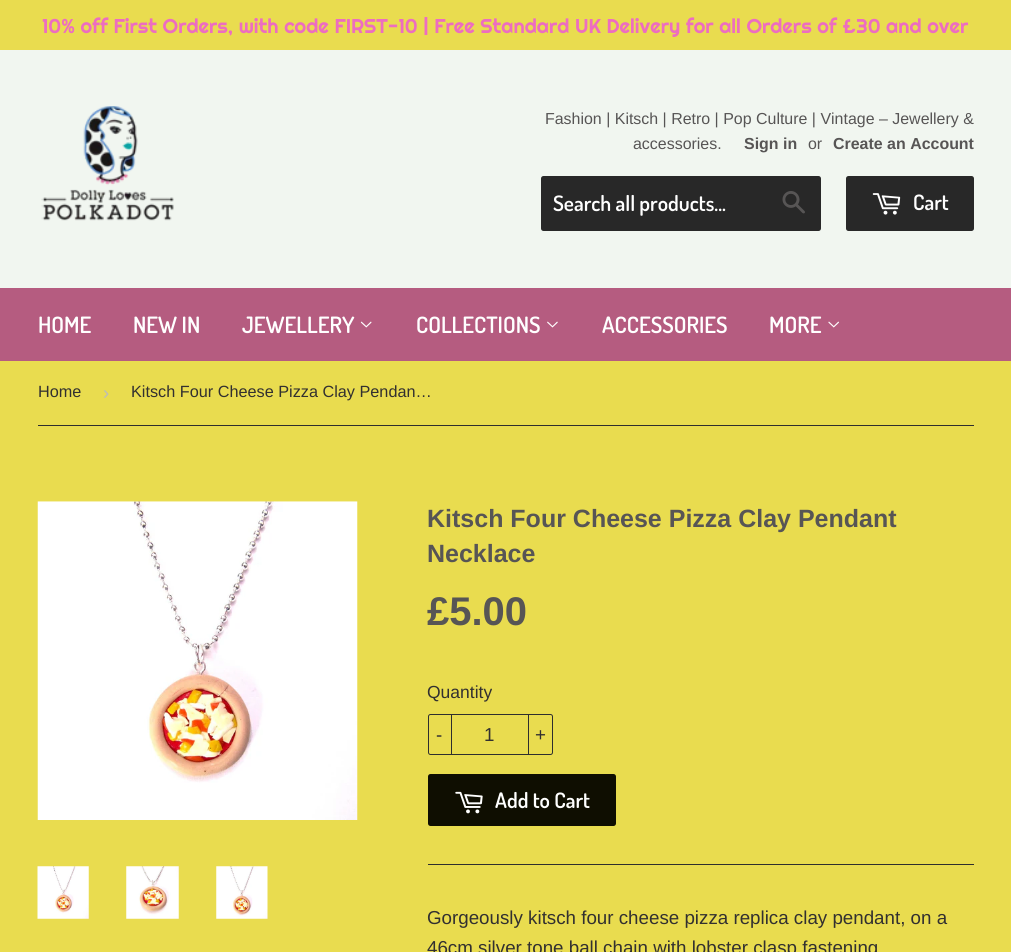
#include <cairo.h>
#include <math.h>
#include <stddef.h>


static void round_rect(cairo_t *cr, double x, double y, double w, double h, double r) {
    cairo_new_sub_path(cr);
    cairo_arc(cr, x + w - r, y + h - r, r, 0, M_PI / 2);
    cairo_arc(cr, x + r, y + h - r, r, M_PI / 2, M_PI);
    cairo_arc(cr, x + r, y + r, r, M_PI, 1.5 * M_PI);
    cairo_arc(cr, x + w - r, y + r, r, 1.5 * M_PI, 2 * M_PI);
    cairo_close_path(cr);
}

static void picture(cairo_t *cr, const char *path, double x, double y, double w, double h) {
    cairo_surface_t *image = cairo_image_surface_create_from_png(path);
    cairo_save(cr);
    cairo_set_source_surface(cr, image, x, y);
    cairo_rectangle(cr, x, y, w, h);
    cairo_fill(cr);
    cairo_restore(cr);
    cairo_surface_destroy(image);
}

int main(void) {
    cairo_surface_t *surface = cairo_image_surface_create(CAIRO_FORMAT_RGB24, 1011, 952);
    cairo_t *cr = cairo_create(surface);
    cairo_font_options_t *options = cairo_font_options_create();
    cairo_font_options_set_hint_metrics(options, CAIRO_HINT_METRICS_OFF);
    cairo_font_options_set_hint_style(options, CAIRO_HINT_STYLE_NONE);
    cairo_set_font_options(cr, options);
    cairo_set_miter_limit(cr, 4);
    cairo_set_source_rgb(cr, 0.914, 0.863, 0.31);
    cairo_paint(cr);
    cairo_select_font_face(cr, "Righteous", CAIRO_FONT_SLANT_NORMAL, CAIRO_FONT_WEIGHT_NORMAL);
    cairo_set_font_size(cr, 20);
    cairo_set_source_rgb(cr, 0.929, 0.427, 0.753);
    cairo_move_to(cr, 42, 33);
    cairo_show_text(cr, "10% off First Orders, with code FIRST-10 | Free Standard UK Delivery for all Orders of £30 and over");
    cairo_set_source_rgb(cr, 0.945, 0.961, 0.941);
    cairo_rectangle(cr, 0, 50, 1011, 238);
    cairo_fill(cr);
    picture(cr, "img1.png", 41, 106, 133, 115);
    cairo_select_font_face(cr, "Liberation Sans", CAIRO_FONT_SLANT_NORMAL, CAIRO_FONT_WEIGHT_NORMAL);
    cairo_set_font_size(cr, 15.95);
    cairo_set_source_rgb(cr, 0.341, 0.333, 0.333);
    cairo_move_to(cr, 545, 124);
    cairo_show_text(cr, "Fashion | Kitsch | Retro | Pop Culture | Vintage – Jewellery &");
    cairo_move_to(cr, 633, 149);
    cairo_show_text(cr, "accessories.");
    cairo_select_font_face(cr, "Liberation Sans", CAIRO_FONT_SLANT_NORMAL, CAIRO_FONT_WEIGHT_BOLD);
    cairo_move_to(cr, 744, 149);
    cairo_show_text(cr, "Sign in");
    cairo_select_font_face(cr, "Liberation Sans", CAIRO_FONT_SLANT_NORMAL, CAIRO_FONT_WEIGHT_NORMAL);
    cairo_move_to(cr, 808, 149);
    cairo_show_text(cr, "or");
    cairo_select_font_face(cr, "Liberation Sans", CAIRO_FONT_SLANT_NORMAL, CAIRO_FONT_WEIGHT_BOLD);
    cairo_move_to(cr, 833, 149);
    cairo_show_text(cr, "Create an Account");
    cairo_set_source_rgb(cr, 0.157, 0.157, 0.157);
    round_rect(cr, 541, 176, 280, 55, 2.5);
    cairo_fill(cr);
    cairo_select_font_face(cr, "Dosis SemiBold", CAIRO_FONT_SLANT_NORMAL, CAIRO_FONT_WEIGHT_NORMAL);
    cairo_set_font_size(cr, 21.25);
    cairo_set_source_rgb(cr, 1, 1, 1);
    cairo_move_to(cr, 553, 211);
    cairo_show_text(cr, "Search all products...");
    picture(cr, "img2.png", 782, 191, 23, 23);
    cairo_set_source_rgb(cr, 0.157, 0.157, 0.157);
    round_rect(cr, 846, 176, 128, 55, 2.5);
    cairo_fill(cr);
    picture(cr, "img3.png", 872, 193, 29, 22);
    cairo_set_source_rgb(cr, 1, 1, 1);
    cairo_move_to(cr, 913, 210);
    cairo_show_text(cr, "Cart");
    cairo_set_source_rgb(cr, 0.71, 0.361, 0.502);
    cairo_rectangle(cr, 0, 288, 1011, 73);
    cairo_fill(cr);
    cairo_set_font_size(cr, 22.5);
    cairo_set_source_rgb(cr, 1, 1, 1);
    cairo_move_to(cr, 38, 333);
    cairo_show_text(cr, "HOME");
    cairo_move_to(cr, 133, 333);
    cairo_show_text(cr, "NEW IN");
    cairo_move_to(cr, 242, 333);
    cairo_show_text(cr, "JEWELLERY");
    picture(cr, "img4.png", 360, 321, 12, 7);
    cairo_move_to(cr, 416, 333);
    cairo_show_text(cr, "COLLECTIONS");
    picture(cr, "img5.png", 547, 321, 11, 7);
    cairo_move_to(cr, 602, 333);
    cairo_show_text(cr, "ACCESSORIES");
    cairo_move_to(cr, 769, 333);
    cairo_show_text(cr, "MORE");
    picture(cr, "img6.png", 828, 321, 11, 7);
    cairo_set_source_rgb(cr, 0.18, 0.18, 0.18);
    cairo_rectangle(cr, 38, 425, 936, 1);
    cairo_fill(cr);
    cairo_select_font_face(cr, "Liberation Sans", CAIRO_FONT_SLANT_NORMAL, CAIRO_FONT_WEIGHT_NORMAL);
    cairo_set_font_size(cr, 16.25);
    cairo_set_source_rgb(cr, 0.196, 0.188, 0.188);
    cairo_move_to(cr, 38, 397);
    cairo_show_text(cr, "Home");
    cairo_set_font_size(cr, 18.75);
    cairo_set_source_rgb(cr, 0.733, 0.733, 0.733);
    cairo_move_to(cr, 103, 399);
    cairo_show_text(cr, "›");
    cairo_set_font_size(cr, 16.25);
    cairo_set_source_rgb(cr, 0.196, 0.188, 0.188);
    cairo_move_to(cr, 131, 397);
    cairo_show_text(cr, "Kitsch Four Cheese Pizza Clay Pendan…");
    picture(cr, "img7.png", 37, 501, 321, 319);
    picture(cr, "img8.png", 37, 866, 52, 53);
    picture(cr, "img9.png", 126, 866, 53, 53);
    picture(cr, "img10.png", 216, 866, 52, 53);
    cairo_select_font_face(cr, "Liberation Sans", CAIRO_FONT_SLANT_NORMAL, CAIRO_FONT_WEIGHT_BOLD);
    cairo_set_font_size(cr, 25);
    cairo_set_source_rgb(cr, 0.341, 0.333, 0.333);
    cairo_move_to(cr, 427, 527);
    cairo_show_text(cr, "Kitsch Four Cheese Pizza Clay Pendant");
    cairo_move_to(cr, 427, 562);
    cairo_show_text(cr, "Necklace");
    cairo_set_font_size(cr, 40);
    cairo_move_to(cr, 427, 625);
    cairo_show_text(cr, "£5.00");
    cairo_select_font_face(cr, "Liberation Sans", CAIRO_FONT_SLANT_NORMAL, CAIRO_FONT_WEIGHT_NORMAL);
    cairo_set_font_size(cr, 17.5);
    cairo_set_source_rgb(cr, 0.196, 0.188, 0.188);
    cairo_move_to(cr, 427, 698);
    cairo_show_text(cr, "Quantity");
    round_rect(cr, 428.5, 714.5, 124, 40, 2);
    cairo_set_source_rgb(cr, 0.18, 0.18, 0.18);
    cairo_set_line_width(cr, 1);
    cairo_stroke(cr);
    cairo_rectangle(cr, 451, 714, 1, 41);
    cairo_fill(cr);
    cairo_set_font_size(cr, 18.75);
    cairo_set_source_rgb(cr, 0.196, 0.188, 0.188);
    cairo_move_to(cr, 436, 741);
    cairo_show_text(cr, "-");
    cairo_move_to(cr, 484, 741);
    cairo_show_text(cr, "1");
    cairo_set_source_rgb(cr, 0.18, 0.18, 0.18);
    cairo_rectangle(cr, 528, 714, 1, 41);
    cairo_fill(cr);
    cairo_set_source_rgb(cr, 0.196, 0.188, 0.188);
    cairo_move_to(cr, 535, 741);
    cairo_show_text(cr, "+");
    cairo_set_source_rgb(cr, 0.059, 0.055, 0.004);
    round_rect(cr, 428, 774, 188, 52, 2.5);
    cairo_fill(cr);
    picture(cr, "img11.png", 455, 791, 28, 23);
    cairo_select_font_face(cr, "Dosis SemiBold", CAIRO_FONT_SLANT_NORMAL, CAIRO_FONT_WEIGHT_NORMAL);
    cairo_set_font_size(cr, 21.25);
    cairo_set_source_rgb(cr, 1, 1, 1);
    cairo_move_to(cr, 495, 808);
    cairo_show_text(cr, "Add to Cart");
    cairo_set_source_rgb(cr, 0.18, 0.18, 0.18);
    cairo_rectangle(cr, 428, 864, 546, 1);
    cairo_fill(cr);
    cairo_select_font_face(cr, "Liberation Sans", CAIRO_FONT_SLANT_NORMAL, CAIRO_FONT_WEIGHT_NORMAL);
    cairo_set_font_size(cr, 18.75);
    cairo_set_source_rgb(cr, 0.196, 0.188, 0.188);
    cairo_move_to(cr, 427, 924);
    cairo_show_text(cr, "Gorgeously kitsch four cheese pizza replica clay pendant, on a");
    cairo_move_to(cr, 427, 954);
    cairo_show_text(cr, "46cm silver tone ball chain with lobster clasp fastening");
    cairo_surface_write_to_png(surface, "page.png");
    cairo_font_options_destroy(options);
    cairo_destroy(cr);
    cairo_surface_destroy(surface);
    return 0;
}
